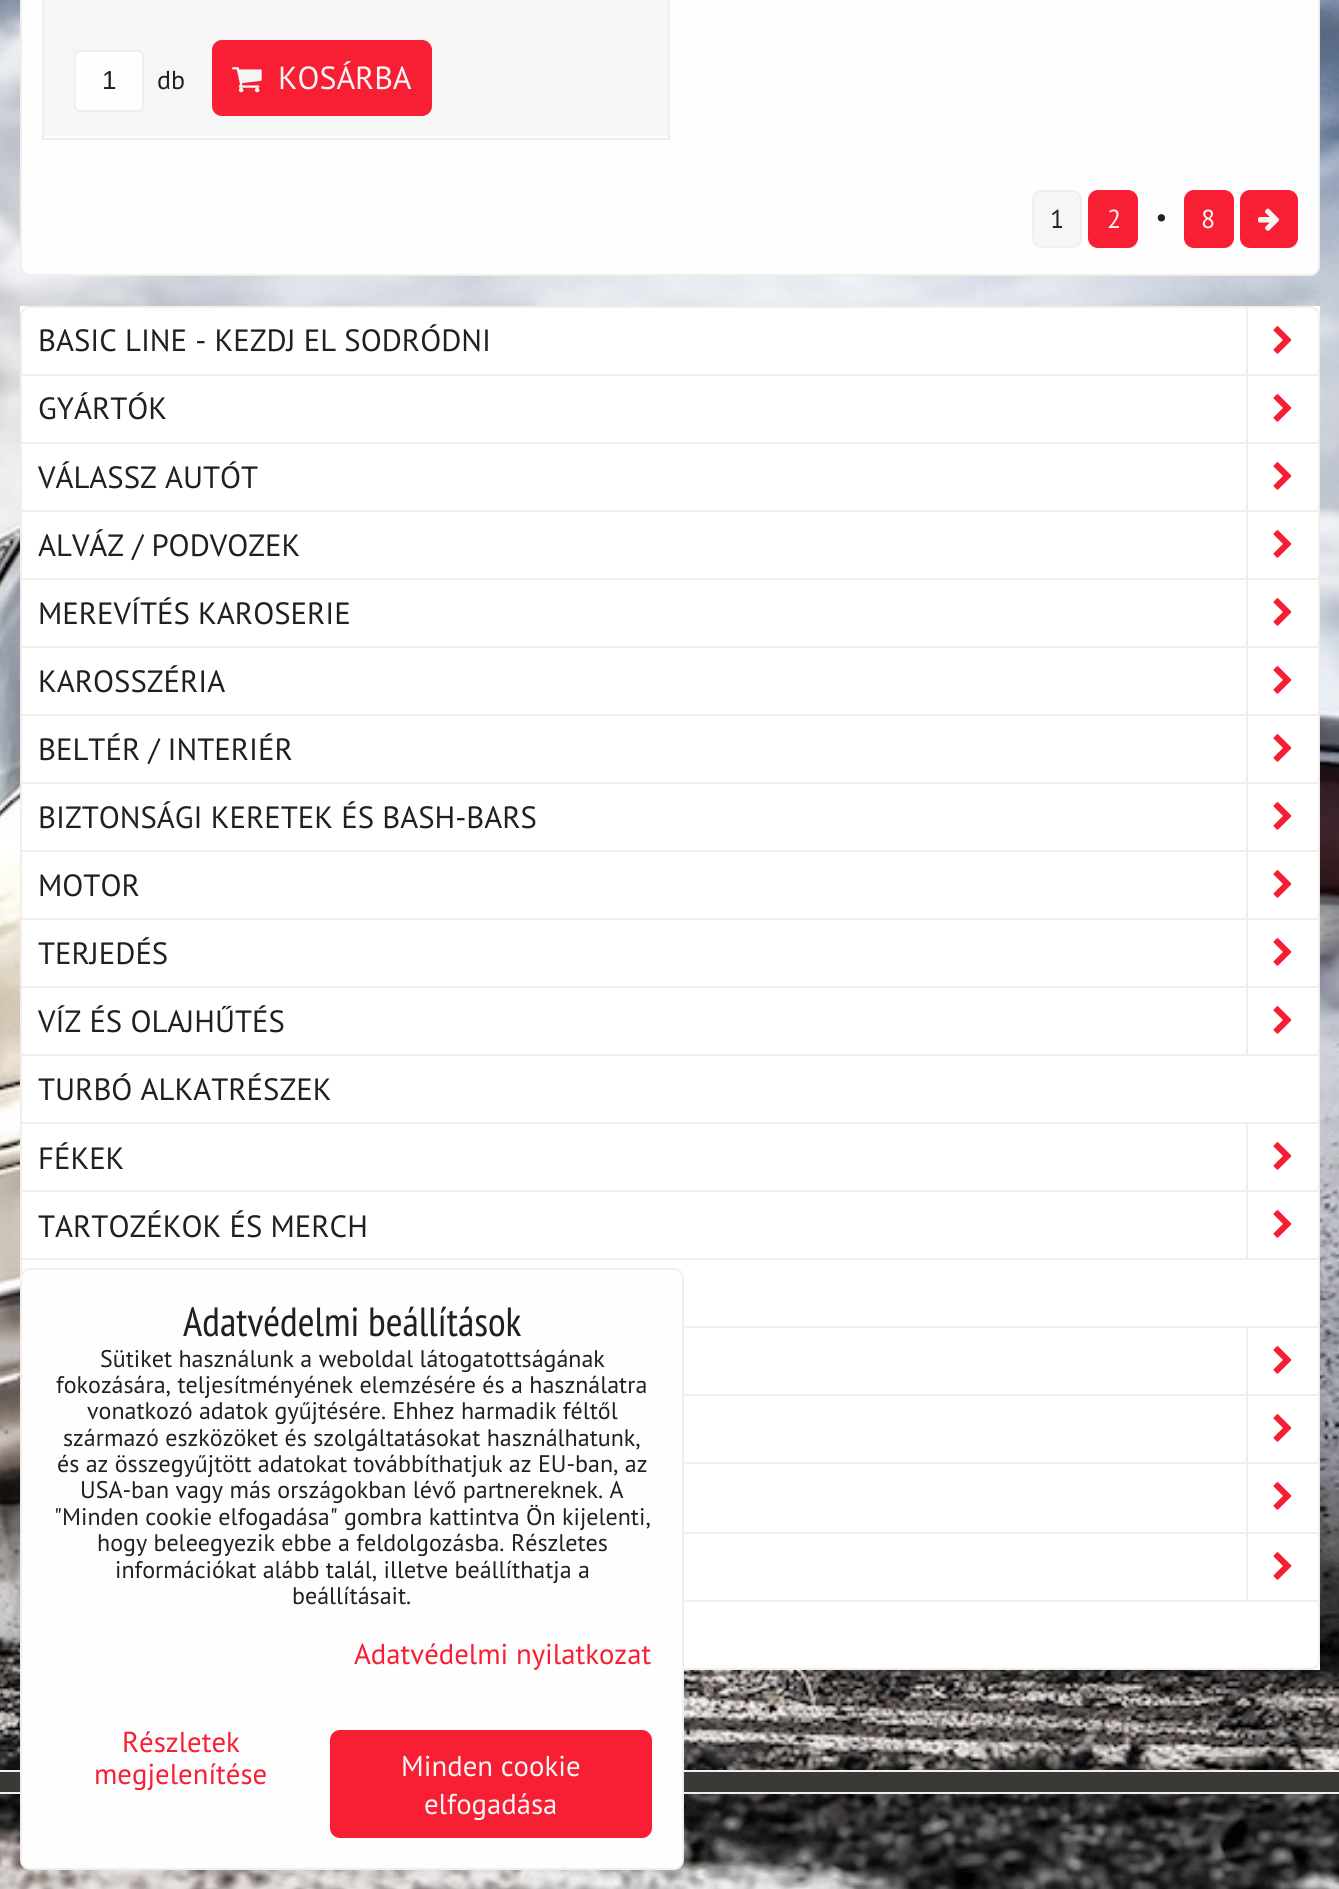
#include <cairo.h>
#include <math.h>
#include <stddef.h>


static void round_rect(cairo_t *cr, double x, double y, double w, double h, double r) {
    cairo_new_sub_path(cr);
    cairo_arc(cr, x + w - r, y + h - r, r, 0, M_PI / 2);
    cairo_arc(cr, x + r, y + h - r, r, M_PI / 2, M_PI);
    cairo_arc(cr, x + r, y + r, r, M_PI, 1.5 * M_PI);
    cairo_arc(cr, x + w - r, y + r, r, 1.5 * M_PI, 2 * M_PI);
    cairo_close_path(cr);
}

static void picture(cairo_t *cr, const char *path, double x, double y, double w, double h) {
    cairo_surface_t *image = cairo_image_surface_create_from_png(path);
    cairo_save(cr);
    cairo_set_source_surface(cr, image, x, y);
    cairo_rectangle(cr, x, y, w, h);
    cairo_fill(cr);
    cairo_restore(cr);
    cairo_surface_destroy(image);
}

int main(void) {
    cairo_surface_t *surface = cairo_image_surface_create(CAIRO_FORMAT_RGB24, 1339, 1889);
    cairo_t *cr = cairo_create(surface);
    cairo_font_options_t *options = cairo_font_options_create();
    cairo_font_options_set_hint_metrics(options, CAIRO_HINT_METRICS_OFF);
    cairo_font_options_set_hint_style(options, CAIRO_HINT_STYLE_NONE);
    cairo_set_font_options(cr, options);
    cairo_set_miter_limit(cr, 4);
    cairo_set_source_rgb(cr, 1, 1, 1);
    cairo_paint(cr);
    picture(cr, "img1.png", 0, 0, 1339, 1889);
    cairo_set_source_rgb(cr, 0.996, 0.996, 0.996);
    round_rect(cr, 21, -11, 1298, 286, 9);
    cairo_fill_preserve(cr);
    cairo_set_source_rgb(cr, 0.941, 0.937, 0.918);
    cairo_stroke(cr);
    cairo_rectangle(cr, 668, 0, 2, 140);
    cairo_fill(cr);
    cairo_rectangle(cr, 42, 138, 628, 2);
    cairo_fill(cr);
    cairo_rectangle(cr, 42, 0, 2, 140);
    cairo_fill(cr);
    cairo_set_source_rgb(cr, 0.961, 0.961, 0.961);
    cairo_rectangle(cr, 44, 0, 624, 136);
    cairo_fill(cr);
    cairo_set_source_rgb(cr, 0.996, 0.996, 0.996);
    round_rect(cr, 75, 51, 68, 60, 5);
    cairo_fill_preserve(cr);
    cairo_set_source_rgb(cr, 0.941, 0.937, 0.918);
    cairo_stroke(cr);
    cairo_select_font_face(cr, "Liberation Sans", CAIRO_FONT_SLANT_NORMAL, CAIRO_FONT_WEIGHT_NORMAL);
    cairo_set_font_size(cr, 26);
    cairo_set_source_rgb(cr, 0.114, 0.129, 0.133);
    cairo_move_to(cr, 102, 89);
    cairo_show_text(cr, "1");
    cairo_select_font_face(cr, "PT Sans", CAIRO_FONT_SLANT_NORMAL, CAIRO_FONT_WEIGHT_NORMAL);
    cairo_move_to(cr, 157, 89);
    cairo_show_text(cr, "db");
    cairo_set_source_rgb(cr, 0.969, 0.118, 0.2);
    round_rect(cr, 212, 40, 220, 76, 10);
    cairo_fill(cr);
    picture(cr, "img2.png", 232, 67, 30, 26);
    cairo_set_font_size(cr, 32);
    cairo_set_source_rgb(cr, 0.961, 0.961, 0.961);
    cairo_move_to(cr, 278, 89);
    cairo_show_text(cr, "KOSÁRBA");
    round_rect(cr, 1033, 191, 48, 56, 9);
    cairo_fill_preserve(cr);
    cairo_set_source_rgb(cr, 0.941, 0.937, 0.918);
    cairo_stroke(cr);
    cairo_set_font_size(cr, 26);
    cairo_set_source_rgb(cr, 0.114, 0.129, 0.133);
    cairo_move_to(cr, 1050, 228);
    cairo_show_text(cr, "1");
    cairo_set_source_rgb(cr, 0.969, 0.118, 0.2);
    round_rect(cr, 1089, 191, 48, 56, 9);
    cairo_fill_preserve(cr);
    cairo_stroke(cr);
    cairo_set_source_rgb(cr, 0.961, 0.961, 0.961);
    cairo_move_to(cr, 1107, 228);
    cairo_show_text(cr, "2");
    cairo_select_font_face(cr, "Liberation Serif", CAIRO_FONT_SLANT_NORMAL, CAIRO_FONT_WEIGHT_NORMAL);
    cairo_set_font_size(cr, 30.75);
    cairo_set_source_rgb(cr, 0.114, 0.129, 0.133);
    cairo_move_to(cr, 1156, 228);
    cairo_show_text(cr, "•");
    cairo_set_source_rgb(cr, 0.969, 0.118, 0.2);
    round_rect(cr, 1185, 191, 48, 56, 9);
    cairo_fill_preserve(cr);
    cairo_stroke(cr);
    cairo_select_font_face(cr, "PT Sans", CAIRO_FONT_SLANT_NORMAL, CAIRO_FONT_WEIGHT_NORMAL);
    cairo_set_font_size(cr, 26);
    cairo_set_source_rgb(cr, 0.961, 0.961, 0.961);
    cairo_move_to(cr, 1201, 228);
    cairo_show_text(cr, "8");
    cairo_set_source_rgb(cr, 0.969, 0.118, 0.2);
    round_rect(cr, 1241, 191, 56, 56, 9);
    cairo_fill_preserve(cr);
    cairo_stroke(cr);
    picture(cr, "img3.png", 1258, 208, 21, 23);
    cairo_set_source_rgb(cr, 1, 1, 1);
    cairo_rectangle(cr, 20, 306, 1300, 1364);
    cairo_fill(cr);
    round_rect(cr, 21, 307, 1298, 1362, 9);
    cairo_set_source_rgb(cr, 0.941, 0.937, 0.918);
    cairo_stroke(cr);
    cairo_rectangle(cr, 22, 374, 1296, 2);
    cairo_fill(cr);
    cairo_set_font_size(cr, 30.75);
    cairo_set_source_rgb(cr, 0.114, 0.129, 0.133);
    cairo_move_to(cr, 38, 351);
    cairo_show_text(cr, "BASIC LINE - KEZDJ EL SODRÓDNI");
    cairo_set_source_rgb(cr, 0.941, 0.937, 0.918);
    cairo_rectangle(cr, 1246, 308, 2, 66);
    cairo_fill(cr);
    picture(cr, "img4.png", 1273, 326, 19, 28);
    cairo_rectangle(cr, 22, 442, 1296, 2);
    cairo_fill(cr);
    cairo_set_source_rgb(cr, 0.114, 0.129, 0.133);
    cairo_move_to(cr, 38, 419);
    cairo_show_text(cr, "GYÁRTÓK");
    cairo_set_source_rgb(cr, 0.941, 0.937, 0.918);
    cairo_rectangle(cr, 1246, 376, 2, 66);
    cairo_fill(cr);
    picture(cr, "img4.png", 1273, 394, 19, 28);
    cairo_rectangle(cr, 22, 510, 1296, 2);
    cairo_fill(cr);
    cairo_set_source_rgb(cr, 0.114, 0.129, 0.133);
    cairo_move_to(cr, 38, 488);
    cairo_show_text(cr, "VÁLASSZ AUTÓT");
    cairo_set_source_rgb(cr, 0.941, 0.937, 0.918);
    cairo_rectangle(cr, 1246, 444, 2, 66);
    cairo_fill(cr);
    picture(cr, "img4.png", 1273, 462, 19, 28);
    cairo_rectangle(cr, 22, 578, 1296, 2);
    cairo_fill(cr);
    cairo_set_source_rgb(cr, 0.114, 0.129, 0.133);
    cairo_move_to(cr, 38, 556);
    cairo_show_text(cr, "ALVÁZ / PODVOZEK");
    cairo_set_source_rgb(cr, 0.941, 0.937, 0.918);
    cairo_rectangle(cr, 1246, 512, 2, 66);
    cairo_fill(cr);
    picture(cr, "img4.png", 1273, 530, 19, 28);
    cairo_rectangle(cr, 22, 646, 1296, 2);
    cairo_fill(cr);
    cairo_set_source_rgb(cr, 0.114, 0.129, 0.133);
    cairo_move_to(cr, 38, 624);
    cairo_show_text(cr, "MEREVÍTÉS KAROSERIE");
    cairo_set_source_rgb(cr, 0.941, 0.937, 0.918);
    cairo_rectangle(cr, 1246, 580, 2, 66);
    cairo_fill(cr);
    picture(cr, "img4.png", 1273, 598, 19, 28);
    cairo_rectangle(cr, 22, 714, 1296, 2);
    cairo_fill(cr);
    cairo_set_source_rgb(cr, 0.114, 0.129, 0.133);
    cairo_move_to(cr, 38, 692);
    cairo_show_text(cr, "KAROSSZÉRIA");
    cairo_set_source_rgb(cr, 0.941, 0.937, 0.918);
    cairo_rectangle(cr, 1246, 648, 2, 66);
    cairo_fill(cr);
    picture(cr, "img4.png", 1273, 666, 19, 28);
    cairo_rectangle(cr, 22, 782, 1296, 2);
    cairo_fill(cr);
    cairo_set_source_rgb(cr, 0.114, 0.129, 0.133);
    cairo_move_to(cr, 38, 760);
    cairo_show_text(cr, "BELTÉR / INTERIÉR");
    cairo_set_source_rgb(cr, 0.941, 0.937, 0.918);
    cairo_rectangle(cr, 1246, 716, 2, 66);
    cairo_fill(cr);
    picture(cr, "img4.png", 1273, 734, 19, 28);
    cairo_rectangle(cr, 22, 850, 1296, 2);
    cairo_fill(cr);
    cairo_set_source_rgb(cr, 0.114, 0.129, 0.133);
    cairo_move_to(cr, 38, 828);
    cairo_show_text(cr, "BIZTONSÁGI KERETEK ÉS BASH-BARS");
    cairo_set_source_rgb(cr, 0.941, 0.937, 0.918);
    cairo_rectangle(cr, 1246, 784, 2, 66);
    cairo_fill(cr);
    picture(cr, "img4.png", 1273, 802, 19, 28);
    cairo_rectangle(cr, 22, 918, 1296, 2);
    cairo_fill(cr);
    cairo_set_source_rgb(cr, 0.114, 0.129, 0.133);
    cairo_move_to(cr, 38, 896);
    cairo_show_text(cr, "MOTOR");
    cairo_set_source_rgb(cr, 0.941, 0.937, 0.918);
    cairo_rectangle(cr, 1246, 852, 2, 66);
    cairo_fill(cr);
    picture(cr, "img4.png", 1273, 870, 19, 28);
    cairo_rectangle(cr, 22, 986, 1296, 2);
    cairo_fill(cr);
    cairo_set_source_rgb(cr, 0.114, 0.129, 0.133);
    cairo_move_to(cr, 38, 964);
    cairo_show_text(cr, "TERJEDÉS");
    cairo_set_source_rgb(cr, 0.941, 0.937, 0.918);
    cairo_rectangle(cr, 1246, 920, 2, 66);
    cairo_fill(cr);
    picture(cr, "img4.png", 1273, 938, 19, 28);
    cairo_rectangle(cr, 22, 1054, 1296, 2);
    cairo_fill(cr);
    cairo_set_source_rgb(cr, 0.114, 0.129, 0.133);
    cairo_move_to(cr, 38, 1032);
    cairo_show_text(cr, "VÍZ ÉS OLAJHŰTÉS");
    cairo_set_source_rgb(cr, 0.941, 0.937, 0.918);
    cairo_rectangle(cr, 1246, 988, 2, 66);
    cairo_fill(cr);
    picture(cr, "img4.png", 1273, 1006, 19, 28);
    cairo_rectangle(cr, 22, 1122, 1296, 2);
    cairo_fill(cr);
    cairo_set_source_rgb(cr, 0.114, 0.129, 0.133);
    cairo_move_to(cr, 38, 1100);
    cairo_show_text(cr, "TURBÓ ALKATRÉSZEK");
    cairo_set_source_rgb(cr, 0.941, 0.937, 0.918);
    cairo_rectangle(cr, 22, 1190, 1296, 2);
    cairo_fill(cr);
    cairo_set_source_rgb(cr, 0.114, 0.129, 0.133);
    cairo_move_to(cr, 38, 1169);
    cairo_show_text(cr, "FÉKEK");
    cairo_set_source_rgb(cr, 0.941, 0.937, 0.918);
    cairo_rectangle(cr, 1246, 1124, 2, 66);
    cairo_fill(cr);
    picture(cr, "img4.png", 1273, 1142, 19, 28);
    cairo_rectangle(cr, 22, 1258, 1296, 2);
    cairo_fill(cr);
    cairo_set_source_rgb(cr, 0.114, 0.129, 0.133);
    cairo_move_to(cr, 38, 1237);
    cairo_show_text(cr, "TARTOZÉKOK ÉS MERCH");
    cairo_set_source_rgb(cr, 0.941, 0.937, 0.918);
    cairo_rectangle(cr, 1246, 1192, 2, 66);
    cairo_fill(cr);
    picture(cr, "img4.png", 1273, 1210, 19, 28);
    cairo_rectangle(cr, 684, 1326, 634, 2);
    cairo_fill(cr);
    cairo_rectangle(cr, 684, 1394, 634, 2);
    cairo_fill(cr);
    cairo_rectangle(cr, 1246, 1328, 2, 66);
    cairo_fill(cr);
    picture(cr, "img4.png", 1273, 1346, 19, 28);
    cairo_rectangle(cr, 684, 1462, 634, 2);
    cairo_fill(cr);
    cairo_rectangle(cr, 1246, 1396, 2, 66);
    cairo_fill(cr);
    picture(cr, "img4.png", 1273, 1414, 19, 28);
    cairo_rectangle(cr, 684, 1532, 634, 2);
    cairo_fill(cr);
    cairo_rectangle(cr, 1246, 1464, 2, 68);
    cairo_fill(cr);
    picture(cr, "img4.png", 1273, 1482, 19, 28);
    cairo_rectangle(cr, 684, 1600, 634, 2);
    cairo_fill(cr);
    cairo_rectangle(cr, 1246, 1534, 2, 66);
    cairo_fill(cr);
    picture(cr, "img4.png", 1273, 1552, 19, 28);
    cairo_set_source_rgb(cr, 0.227, 0.224, 0.208);
    cairo_rectangle(cr, 0, 1772, 1339, 20);
    cairo_fill(cr);
    cairo_set_source_rgb(cr, 0.941, 0.937, 0.918);
    cairo_rectangle(cr, 0, 1770, 1339, 2);
    cairo_fill(cr);
    cairo_rectangle(cr, 0, 1792, 1339, 2);
    cairo_fill(cr);
    cairo_set_source_rgb(cr, 0.996, 0.996, 0.996);
    round_rect(cr, 21, 1269, 662, 600, 9);
    cairo_fill_preserve(cr);
    cairo_set_source_rgb(cr, 0.941, 0.937, 0.918);
    cairo_stroke(cr);
    cairo_select_font_face(cr, "PT Sans Narrow", CAIRO_FONT_SLANT_NORMAL, CAIRO_FONT_WEIGHT_NORMAL);
    cairo_set_font_size(cr, 40.75);
    cairo_set_source_rgb(cr, 0.114, 0.129, 0.133);
    cairo_move_to(cr, 183, 1336);
    cairo_show_text(cr, "Adatvédelmi beállítások");
    cairo_select_font_face(cr, "PT Sans", CAIRO_FONT_SLANT_NORMAL, CAIRO_FONT_WEIGHT_NORMAL);
    cairo_set_font_size(cr, 24);
    cairo_move_to(cr, 100, 1367);
    cairo_show_text(cr, "Sütiket használunk a weboldal látogatottságának");
    cairo_move_to(cr, 56, 1393);
    cairo_show_text(cr, "fokozására, teljesítményének elemzésére és a használatra");
    cairo_move_to(cr, 87, 1419);
    cairo_show_text(cr, "vonatkozó adatok gyűjtésére. Ehhez harmadik féltől");
    cairo_move_to(cr, 63, 1446);
    cairo_show_text(cr, "származó eszközöket és szolgáltatásokat használhatunk,");
    cairo_move_to(cr, 57, 1472);
    cairo_show_text(cr, "és az összegyűjtött adatokat továbbíthatjuk az EU-ban, az");
    cairo_move_to(cr, 80, 1498);
    cairo_show_text(cr, "USA-ban vagy más országokban lévő partnereknek. A");
    cairo_move_to(cr, 54, 1525);
    cairo_show_text(cr, "\"Minden cookie elfogadása\" gombra kattintva Ön kijelenti,");
    cairo_move_to(cr, 97, 1551);
    cairo_show_text(cr, "hogy beleegyezik ebbe a feldolgozásba. Részletes");
    cairo_move_to(cr, 115, 1578);
    cairo_show_text(cr, "információkat alább talál, illetve beállíthatja a");
    cairo_move_to(cr, 292, 1604);
    cairo_show_text(cr, "beállításait.");
    cairo_set_font_size(cr, 28.75);
    cairo_set_source_rgb(cr, 0.969, 0.118, 0.2);
    cairo_move_to(cr, 354, 1664);
    cairo_show_text(cr, "Adatvédelmi nyilatkozat");
    cairo_move_to(cr, 122, 1752);
    cairo_show_text(cr, "Részletek");
    cairo_move_to(cr, 94, 1784);
    cairo_show_text(cr, "megjelenítése");
    round_rect(cr, 331, 1731, 320, 106, 9);
    cairo_fill_preserve(cr);
    cairo_stroke(cr);
    cairo_set_source_rgb(cr, 0.961, 0.961, 0.961);
    cairo_move_to(cr, 401, 1776);
    cairo_show_text(cr, "Minden cookie");
    cairo_move_to(cr, 424, 1814);
    cairo_show_text(cr, "elfogadása");
    cairo_surface_write_to_png(surface, "page.png");
    cairo_font_options_destroy(options);
    cairo_destroy(cr);
    cairo_surface_destroy(surface);
    return 0;
}
